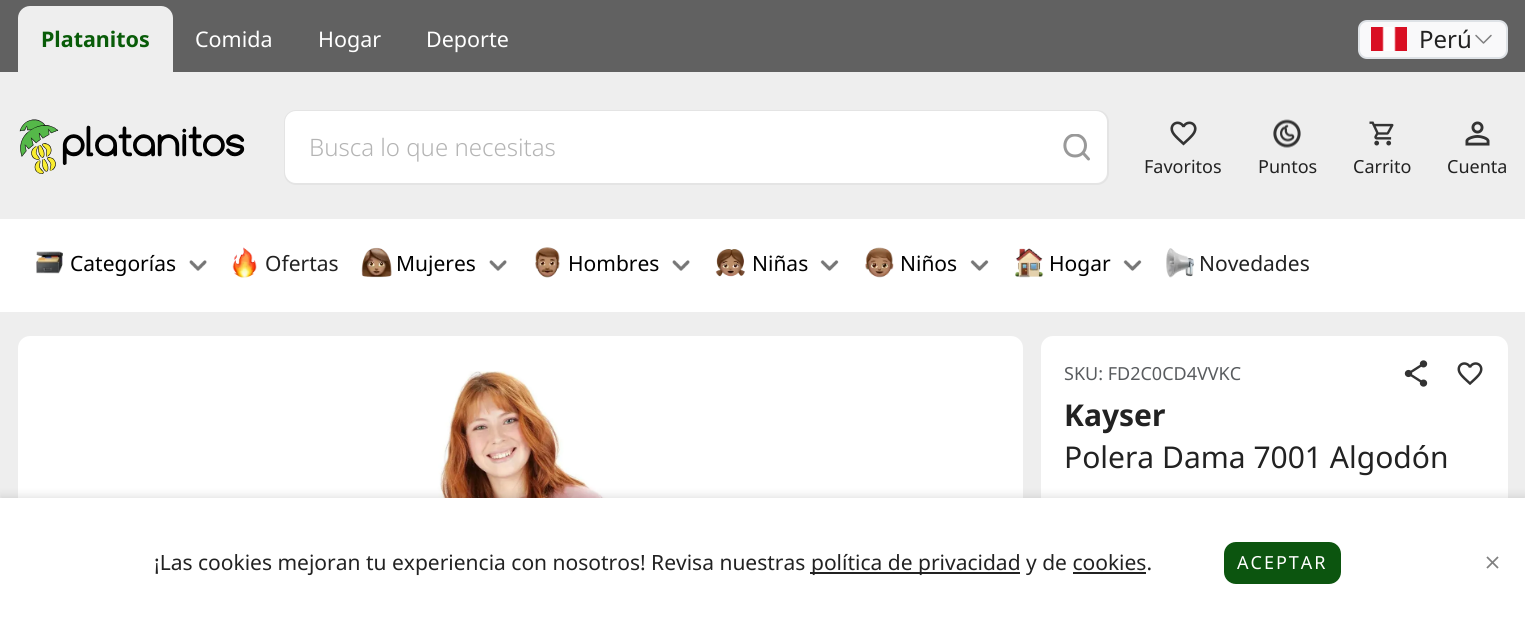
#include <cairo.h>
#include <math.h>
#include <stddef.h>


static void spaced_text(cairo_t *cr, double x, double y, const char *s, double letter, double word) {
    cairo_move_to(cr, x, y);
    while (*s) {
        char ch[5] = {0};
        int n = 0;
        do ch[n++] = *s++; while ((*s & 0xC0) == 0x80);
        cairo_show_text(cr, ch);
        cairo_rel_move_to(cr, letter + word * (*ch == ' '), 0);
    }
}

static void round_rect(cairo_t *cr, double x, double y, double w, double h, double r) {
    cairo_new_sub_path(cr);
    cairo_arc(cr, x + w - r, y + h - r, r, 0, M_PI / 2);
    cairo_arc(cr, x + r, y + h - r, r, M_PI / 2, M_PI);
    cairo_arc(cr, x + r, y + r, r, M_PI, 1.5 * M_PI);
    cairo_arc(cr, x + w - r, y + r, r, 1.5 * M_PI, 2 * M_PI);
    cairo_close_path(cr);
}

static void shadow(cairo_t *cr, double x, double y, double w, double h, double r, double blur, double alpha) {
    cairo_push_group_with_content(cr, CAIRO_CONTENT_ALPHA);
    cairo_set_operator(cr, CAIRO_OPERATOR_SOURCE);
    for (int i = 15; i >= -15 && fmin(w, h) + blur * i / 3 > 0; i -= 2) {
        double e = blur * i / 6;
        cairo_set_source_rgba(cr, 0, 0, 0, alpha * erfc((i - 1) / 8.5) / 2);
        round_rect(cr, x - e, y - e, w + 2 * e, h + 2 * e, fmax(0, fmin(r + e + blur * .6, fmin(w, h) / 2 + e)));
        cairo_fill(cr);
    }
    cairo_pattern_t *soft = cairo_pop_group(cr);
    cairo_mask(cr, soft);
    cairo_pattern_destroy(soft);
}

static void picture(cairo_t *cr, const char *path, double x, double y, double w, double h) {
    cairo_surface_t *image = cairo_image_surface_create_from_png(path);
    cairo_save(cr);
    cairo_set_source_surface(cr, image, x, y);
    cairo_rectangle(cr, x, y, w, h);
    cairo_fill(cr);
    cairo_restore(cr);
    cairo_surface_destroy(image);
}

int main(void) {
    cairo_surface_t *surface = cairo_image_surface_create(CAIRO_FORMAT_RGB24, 1525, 626);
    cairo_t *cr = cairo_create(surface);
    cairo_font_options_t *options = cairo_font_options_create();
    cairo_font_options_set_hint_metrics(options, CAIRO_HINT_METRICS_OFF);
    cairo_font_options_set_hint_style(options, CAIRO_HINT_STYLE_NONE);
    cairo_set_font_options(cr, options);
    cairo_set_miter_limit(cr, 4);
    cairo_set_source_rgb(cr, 0.933, 0.933, 0.933);
    cairo_paint(cr);
    cairo_set_source_rgb(cr, 0.38, 0.38, 0.38);
    cairo_rectangle(cr, 0, 0, 1525, 72);
    cairo_fill(cr);
    cairo_set_source_rgb(cr, 0.933, 0.933, 0.933);
    cairo_new_path(cr);
    cairo_move_to(cr, 30, 6);
    cairo_line_to(cr, 161, 6);
    cairo_curve_to(cr, 167.5, 6, 173, 11.5, 173, 18);
    cairo_line_to(cr, 173, 75);
    cairo_line_to(cr, 18, 75);
    cairo_line_to(cr, 18, 18);
    cairo_curve_to(cr, 18, 11.5, 23.5, 6, 30, 6);
    cairo_close_path(cr);
    cairo_fill(cr);
    cairo_select_font_face(cr, "Noto Sans", CAIRO_FONT_SLANT_NORMAL, CAIRO_FONT_WEIGHT_BOLD);
    cairo_set_font_size(cr, 21.5);
    cairo_set_source_rgb(cr, 0.039, 0.361, 0.039);
    cairo_move_to(cr, 41, 47);
    cairo_show_text(cr, "Platanitos");
    cairo_select_font_face(cr, "Noto Sans", CAIRO_FONT_SLANT_NORMAL, CAIRO_FONT_WEIGHT_NORMAL);
    cairo_set_source_rgb(cr, 1, 1, 1);
    cairo_move_to(cr, 195, 47);
    cairo_show_text(cr, "Comida");
    cairo_move_to(cr, 318, 47);
    cairo_show_text(cr, "Hogar");
    cairo_move_to(cr, 426, 47);
    cairo_show_text(cr, "Deporte");
    cairo_set_source_rgb(cr, 0.973, 0.976, 0.98);
    round_rect(cr, 1359, 21, 148, 37, 8);
    cairo_fill_preserve(cr);
    cairo_set_source_rgb(cr, 0.871, 0.886, 0.902);
    cairo_stroke(cr);
    picture(cr, "img1.png", 1371, 27, 36, 24);
    cairo_set_font_size(cr, 24);
    cairo_set_source_rgb(cr, 0.133, 0.133, 0.133);
    cairo_move_to(cr, 1419, 48);
    cairo_show_text(cr, "Perú");
    cairo_new_path(cr);
    cairo_move_to(cr, 1491, 35.5);
    cairo_line_to(cr, 1483.5, 43);
    cairo_line_to(cr, 1476, 35.5);
    cairo_set_source_rgb(cr, 0.502, 0.502, 0.502);
    cairo_set_line_width(cr, 1.5);
    cairo_set_line_cap(cr, CAIRO_LINE_CAP_ROUND);
    cairo_set_line_join(cr, CAIRO_LINE_JOIN_ROUND);
    cairo_stroke(cr);
    picture(cr, "img2.png", 19, 119, 226, 55);
    round_rect(cr, 285, 111, 823, 73, 11);
    cairo_set_source_rgb(cr, 0.894, 0.894, 0.894);
    cairo_set_line_width(cr, 2);
    cairo_set_line_cap(cr, CAIRO_LINE_CAP_BUTT);
    cairo_set_line_join(cr, CAIRO_LINE_JOIN_MITER);
    cairo_stroke(cr);
    cairo_set_source_rgb(cr, 1, 1, 1);
    round_rect(cr, 285, 111, 822, 72, 11);
    cairo_fill(cr);
    cairo_select_font_face(cr, "Noto Sans Light", CAIRO_FONT_SLANT_NORMAL, CAIRO_FONT_WEIGHT_NORMAL);
    cairo_set_source_rgb(cr, 0.706, 0.706, 0.706);
    cairo_move_to(cr, 309, 156);
    cairo_show_text(cr, "Busca lo que necesitas");
    cairo_save(cr);
    cairo_rectangle(cr, 1062, 134, 30, 27);
    cairo_clip(cr);
    cairo_new_path(cr);
    cairo_move_to(cr, 1075, 156);
    cairo_curve_to(cr, 1089, 156, 1089, 135, 1075, 135);
    cairo_curve_to(cr, 1061.5, 135, 1061.5, 156, 1075, 156);
    cairo_close_path(cr);
    cairo_set_source_rgb(cr, 0.6, 0.6, 0.6);
    cairo_set_line_width(cr, 3);
    cairo_stroke(cr);
    cairo_restore(cr);
    cairo_new_path(cr);
    cairo_move_to(cr, 1088.5, 159);
    cairo_line_to(cr, 1083.5, 153.5);
    cairo_set_source_rgb(cr, 0.6, 0.6, 0.6);
    cairo_set_line_width(cr, 3);
    cairo_set_line_cap(cr, CAIRO_LINE_CAP_ROUND);
    cairo_stroke(cr);
    picture(cr, "img3.png", 1170, 121, 27, 25);
    cairo_select_font_face(cr, "Noto Sans", CAIRO_FONT_SLANT_NORMAL, CAIRO_FONT_WEIGHT_NORMAL);
    cairo_set_font_size(cr, 18);
    cairo_set_source_rgb(cr, 0.133, 0.133, 0.133);
    cairo_move_to(cr, 1144, 173);
    cairo_show_text(cr, "Favoritos");
    picture(cr, "img4.png", 1273, 119, 28, 29);
    cairo_move_to(cr, 1258, 173);
    cairo_show_text(cr, "Puntos");
    picture(cr, "img5.png", 1369, 121, 25, 25);
    cairo_move_to(cr, 1353, 173);
    cairo_show_text(cr, "Carrito");
    picture(cr, "img6.png", 1465, 121, 25, 25);
    cairo_move_to(cr, 1447, 173);
    cairo_show_text(cr, "Cuenta");
    cairo_set_source_rgb(cr, 1, 1, 1);
    cairo_rectangle(cr, 0, 219, 1525, 93);
    cairo_fill(cr);
    picture(cr, "img7.png", 36, 251, 27, 23);
    cairo_set_font_size(cr, 21);
    cairo_set_source_rgb(cr, 0, 0, 0);
    cairo_move_to(cr, 70, 271);
    cairo_show_text(cr, "Categorías");
    picture(cr, "img8.png", 189, 260, 18, 11);
    picture(cr, "img9.png", 232, 247, 25, 31);
    cairo_set_source_rgb(cr, 0.133, 0.133, 0.133);
    cairo_move_to(cr, 265, 271);
    cairo_show_text(cr, "Ofertas");
    picture(cr, "img10.png", 361, 247, 31, 31);
    cairo_set_source_rgb(cr, 0, 0, 0);
    cairo_move_to(cr, 396, 271);
    cairo_show_text(cr, "Mujeres");
    picture(cr, "img11.png", 489, 260, 18, 11);
    picture(cr, "img12.png", 535, 247, 25, 31);
    cairo_move_to(cr, 568, 271);
    cairo_show_text(cr, "Hombres");
    picture(cr, "img8.png", 672, 260, 18, 11);
    picture(cr, "img13.png", 715, 249, 30, 28);
    cairo_move_to(cr, 752, 271);
    cairo_show_text(cr, "Niñas");
    picture(cr, "img14.png", 820, 260, 19, 11);
    picture(cr, "img15.png", 865, 247, 29, 31);
    cairo_move_to(cr, 900, 271);
    cairo_show_text(cr, "Niños");
    picture(cr, "img14.png", 970, 260, 19, 11);
    picture(cr, "img16.png", 1015, 248, 29, 30);
    cairo_move_to(cr, 1049, 271);
    cairo_show_text(cr, "Hogar");
    picture(cr, "img17.png", 1123, 260, 19, 11);
    picture(cr, "img18.png", 1166, 248, 28, 30);
    cairo_set_source_rgb(cr, 0.133, 0.133, 0.133);
    cairo_move_to(cr, 1199, 271);
    cairo_show_text(cr, "Novedades");
    cairo_set_source_rgb(cr, 1, 1, 1);
    round_rect(cr, 18, 336, 1005, 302, 12);
    cairo_fill(cr);
    picture(cr, "img19.png", 436, 371, 202, 127);
    round_rect(cr, 1041, 336, 467, 272, 12);
    cairo_fill(cr);
    cairo_set_font_size(cr, 18);
    cairo_set_source_rgb(cr, 0.349, 0.361, 0.373);
    cairo_move_to(cr, 1064, 380);
    cairo_show_text(cr, "SKU: FD2C0CD4VVKC");
    picture(cr, "img20.png", 1404, 360, 24, 27);
    picture(cr, "img21.png", 1457, 362, 26, 23);
    cairo_select_font_face(cr, "Noto Sans", CAIRO_FONT_SLANT_NORMAL, CAIRO_FONT_WEIGHT_BOLD);
    cairo_set_font_size(cr, 30);
    cairo_set_source_rgb(cr, 0.133, 0.133, 0.133);
    cairo_move_to(cr, 1064, 426);
    cairo_show_text(cr, "Kayser");
    cairo_select_font_face(cr, "Noto Sans", CAIRO_FONT_SLANT_NORMAL, CAIRO_FONT_WEIGHT_NORMAL);
    cairo_move_to(cr, 1064, 468);
    cairo_show_text(cr, "Polera Dama 7001 Algodón");
    cairo_set_source_rgb(cr, 0, 0, 0);
    shadow(cr, 0, 495, 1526, 129, 0, 4, 0.1);
    cairo_set_source_rgb(cr, 1, 1, 1);
    cairo_rectangle(cr, 0, 498, 1525, 128);
    cairo_fill(cr);
    cairo_set_font_size(cr, 21);
    cairo_set_source_rgb(cr, 0.133, 0.133, 0.133);
    cairo_move_to(cr, 154, 570);
    cairo_show_text(cr, "¡Las cookies mejoran tu experiencia con nosotros! Revisa nuestras");
    cairo_rectangle(cr, 810, 572, 210, 2);
    cairo_fill(cr);
    cairo_move_to(cr, 811, 570);
    cairo_show_text(cr, "política de privacidad y de cookies.");
    cairo_rectangle(cr, 1073, 572, 73, 2);
    cairo_fill(cr);
    cairo_set_source_rgb(cr, 0.047, 0.333, 0.059);
    round_rect(cr, 1225, 543, 115, 40, 11);
    cairo_fill_preserve(cr);
    cairo_set_line_width(cr, 2);
    cairo_set_line_cap(cr, CAIRO_LINE_CAP_BUTT);
    cairo_stroke(cr);
    cairo_set_font_size(cr, 18);
    cairo_set_source_rgb(cr, 1, 1, 1);
    spaced_text(cr, 1237, 569, "ACEPTAR", 2, 0);
    picture(cr, "img22.png", 1486, 556, 13, 13);
    cairo_surface_write_to_png(surface, "page.png");
    cairo_font_options_destroy(options);
    cairo_destroy(cr);
    cairo_surface_destroy(surface);
    return 0;
}
